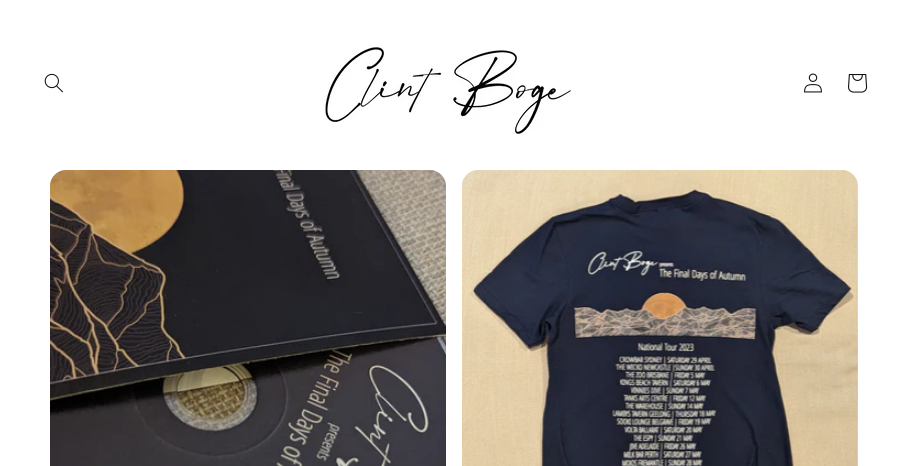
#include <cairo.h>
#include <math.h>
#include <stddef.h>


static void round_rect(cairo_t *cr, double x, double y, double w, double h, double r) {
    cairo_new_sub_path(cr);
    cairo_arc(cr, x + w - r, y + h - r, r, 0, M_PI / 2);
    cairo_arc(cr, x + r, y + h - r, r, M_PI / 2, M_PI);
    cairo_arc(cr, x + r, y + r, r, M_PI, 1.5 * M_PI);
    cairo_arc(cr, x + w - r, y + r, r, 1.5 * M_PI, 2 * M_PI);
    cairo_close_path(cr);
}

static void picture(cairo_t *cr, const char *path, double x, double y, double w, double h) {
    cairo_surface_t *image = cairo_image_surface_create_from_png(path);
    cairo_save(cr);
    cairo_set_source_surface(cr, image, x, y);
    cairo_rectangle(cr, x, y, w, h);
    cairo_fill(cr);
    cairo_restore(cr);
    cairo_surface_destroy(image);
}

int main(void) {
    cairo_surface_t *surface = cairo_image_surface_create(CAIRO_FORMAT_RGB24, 907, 466);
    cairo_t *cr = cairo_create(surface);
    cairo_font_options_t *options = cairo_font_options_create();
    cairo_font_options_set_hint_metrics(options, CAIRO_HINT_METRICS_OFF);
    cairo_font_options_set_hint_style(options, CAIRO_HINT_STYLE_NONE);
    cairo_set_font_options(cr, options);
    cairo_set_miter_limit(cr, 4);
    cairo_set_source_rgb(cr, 1, 1, 1);
    cairo_paint(cr);
    picture(cr, "img1.png", 44, 73, 19, 20);
    picture(cr, "img2.png", 324, 47, 247, 87);
    picture(cr, "img3.png", 804, 73, 18, 20);
    picture(cr, "img4.png", 848, 74, 20, 19);
    cairo_set_source_rgb(cr, 0.953, 0.953, 0.953);
    round_rect(cr, 50, 170, 396, 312, 16);
    cairo_fill(cr);
    picture(cr, "img5.png", 50, 170, 396, 296);
    round_rect(cr, 462, 170, 395, 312, 16);
    cairo_fill(cr);
    picture(cr, "img6.png", 462, 170, 396, 296);
    cairo_surface_write_to_png(surface, "page.png");
    cairo_font_options_destroy(options);
    cairo_destroy(cr);
    cairo_surface_destroy(surface);
    return 0;
}
